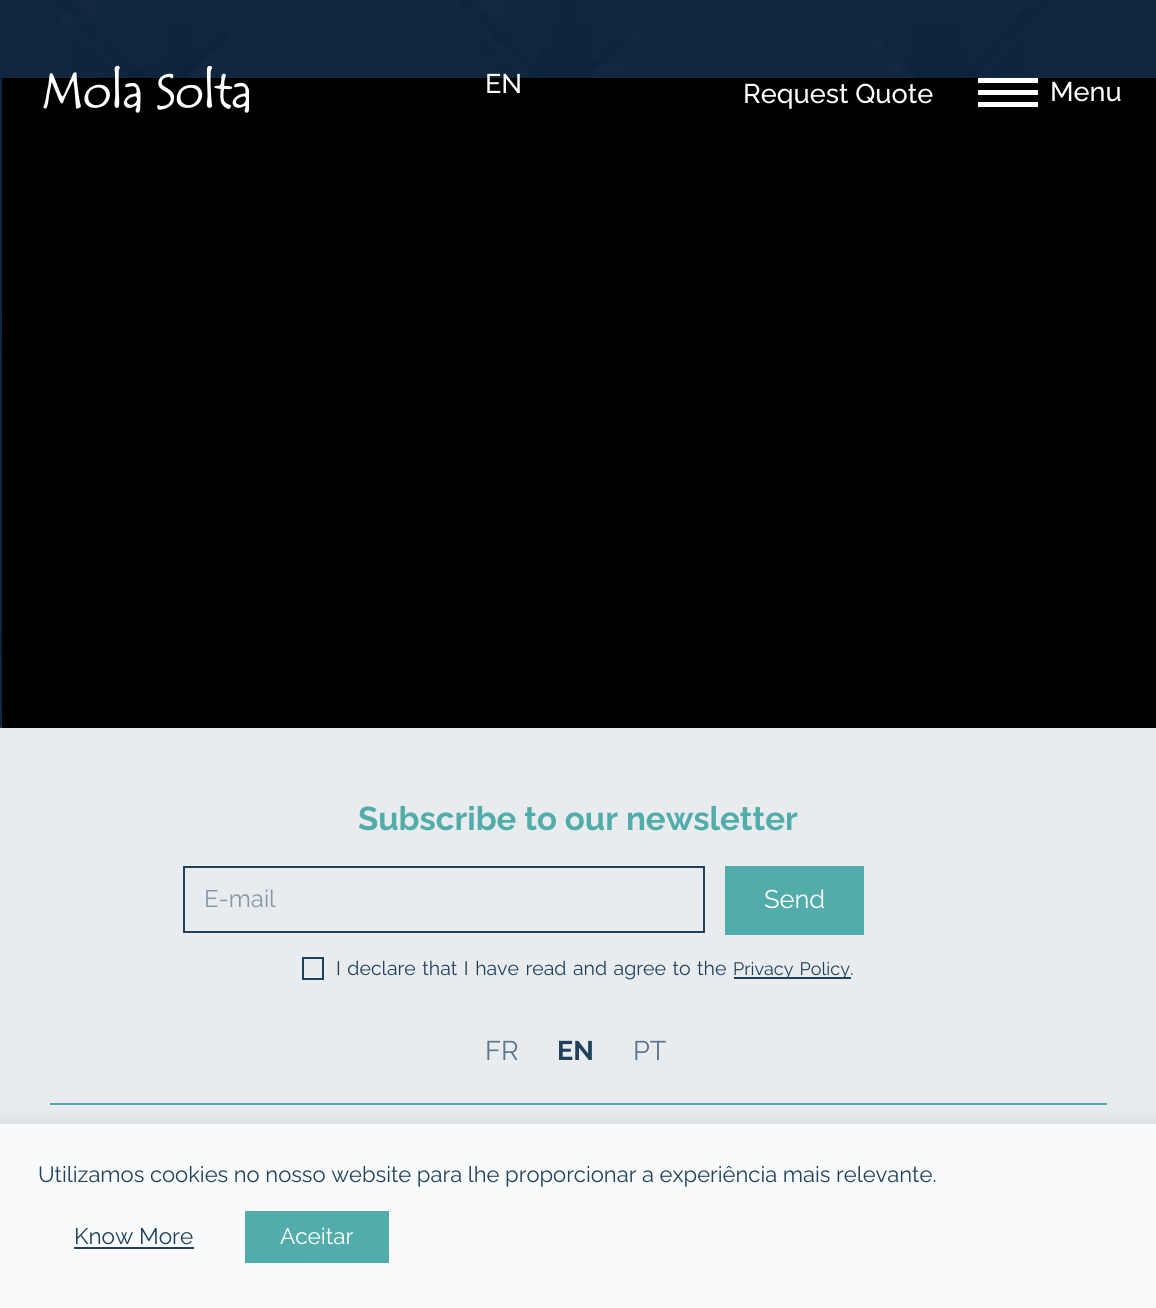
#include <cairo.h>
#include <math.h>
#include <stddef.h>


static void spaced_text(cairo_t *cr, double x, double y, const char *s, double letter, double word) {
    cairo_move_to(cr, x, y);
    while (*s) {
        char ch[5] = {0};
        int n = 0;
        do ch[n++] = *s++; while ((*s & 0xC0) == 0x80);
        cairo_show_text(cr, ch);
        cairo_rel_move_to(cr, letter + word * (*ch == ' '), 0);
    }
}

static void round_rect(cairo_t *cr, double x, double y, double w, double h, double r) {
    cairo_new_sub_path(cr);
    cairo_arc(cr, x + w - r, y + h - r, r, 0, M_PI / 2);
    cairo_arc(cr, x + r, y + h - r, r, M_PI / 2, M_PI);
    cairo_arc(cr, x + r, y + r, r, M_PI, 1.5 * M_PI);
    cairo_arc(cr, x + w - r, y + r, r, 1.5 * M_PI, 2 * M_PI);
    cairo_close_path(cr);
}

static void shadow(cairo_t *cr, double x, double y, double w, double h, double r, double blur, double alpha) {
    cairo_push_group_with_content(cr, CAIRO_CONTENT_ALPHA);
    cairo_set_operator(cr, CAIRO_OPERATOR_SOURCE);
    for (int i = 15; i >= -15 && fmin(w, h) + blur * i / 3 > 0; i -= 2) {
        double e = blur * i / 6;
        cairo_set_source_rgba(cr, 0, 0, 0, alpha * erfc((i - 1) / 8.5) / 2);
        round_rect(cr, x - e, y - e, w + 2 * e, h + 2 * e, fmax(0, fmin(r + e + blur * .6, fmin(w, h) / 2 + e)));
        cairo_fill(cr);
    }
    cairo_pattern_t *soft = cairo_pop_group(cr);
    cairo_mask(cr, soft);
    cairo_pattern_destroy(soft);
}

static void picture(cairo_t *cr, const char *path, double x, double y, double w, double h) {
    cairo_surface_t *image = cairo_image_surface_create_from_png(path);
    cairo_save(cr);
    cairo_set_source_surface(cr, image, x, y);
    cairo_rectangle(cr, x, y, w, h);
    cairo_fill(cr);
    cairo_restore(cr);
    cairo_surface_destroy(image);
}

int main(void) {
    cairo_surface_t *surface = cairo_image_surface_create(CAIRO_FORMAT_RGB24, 1156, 1308);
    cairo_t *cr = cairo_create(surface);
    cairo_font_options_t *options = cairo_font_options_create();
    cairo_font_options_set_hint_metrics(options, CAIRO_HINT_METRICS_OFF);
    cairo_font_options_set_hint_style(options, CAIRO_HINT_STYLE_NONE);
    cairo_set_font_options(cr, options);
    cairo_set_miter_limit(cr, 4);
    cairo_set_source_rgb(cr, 0.125, 0.255, 0.369);
    cairo_paint(cr);
    picture(cr, "img2.png", 0, 0, 1156, 727);
    cairo_set_source_rgb(cr, 0, 0, 0);
    cairo_rectangle(cr, 2, 78, 1154, 650);
    cairo_fill(cr);
    picture(cr, "img1.png", 43, 66, 206, 47);
    cairo_select_font_face(cr, "Raleway Medium", CAIRO_FONT_SLANT_NORMAL, CAIRO_FONT_WEIGHT_NORMAL);
    cairo_set_font_size(cr, 27);
    cairo_set_source_rgb(cr, 1, 1, 1);
    cairo_move_to(cr, 485, 93);
    cairo_show_text(cr, "EN");
    cairo_move_to(cr, 743, 103);
    cairo_show_text(cr, "Request Quote");
    cairo_rectangle(cr, 978, 78, 60, 5);
    cairo_fill(cr);
    cairo_rectangle(cr, 978, 90, 60, 5);
    cairo_fill(cr);
    cairo_rectangle(cr, 978, 102, 60, 5);
    cairo_fill(cr);
    cairo_move_to(cr, 1050, 101);
    cairo_show_text(cr, "Menu");
    cairo_set_source_rgb(cr, 0.91, 0.922, 0.933);
    cairo_rectangle(cr, 0, 728, 1156, 396);
    cairo_fill(cr);
    cairo_select_font_face(cr, "Raleway", CAIRO_FONT_SLANT_NORMAL, CAIRO_FONT_WEIGHT_BOLD);
    cairo_set_font_size(cr, 33);
    cairo_set_source_rgb(cr, 0.322, 0.678, 0.667);
    cairo_move_to(cr, 358, 830);
    cairo_show_text(cr, "Subscribe to our newsletter");
    cairo_rectangle(cr, 184, 867, 520, 65);
    cairo_set_source_rgb(cr, 0.125, 0.255, 0.369);
    cairo_stroke(cr);
    cairo_select_font_face(cr, "Raleway", CAIRO_FONT_SLANT_NORMAL, CAIRO_FONT_WEIGHT_NORMAL);
    cairo_set_font_size(cr, 24);
    cairo_set_source_rgb(cr, 0.518, 0.588, 0.651);
    cairo_move_to(cr, 204, 907);
    cairo_show_text(cr, "E-mail");
    cairo_set_source_rgb(cr, 0.322, 0.678, 0.667);
    cairo_rectangle(cr, 725, 866, 139, 69);
    cairo_fill(cr);
    cairo_set_font_size(cr, 25.5);
    cairo_set_source_rgb(cr, 1, 1, 1);
    cairo_move_to(cr, 764, 908);
    cairo_show_text(cr, "Send");
    cairo_rectangle(cr, 303, 958, 20, 21);
    cairo_set_source_rgb(cr, 0.125, 0.255, 0.369);
    cairo_stroke(cr);
    cairo_set_font_size(cr, 19.5);
    spaced_text(cr, 336, 975, "I declare that I have read and agree to the", 0, 1.5);
    cairo_rectangle(cr, 734, 977, 117, 2);
    cairo_fill(cr);
    cairo_set_font_size(cr, 18);
    spaced_text(cr, 733, 975, "Privacy Policy", 0, 1.5);
    cairo_set_font_size(cr, 19.5);
    cairo_move_to(cr, 850, 975);
    cairo_show_text(cr, ".");
    cairo_set_font_size(cr, 27);
    cairo_set_source_rgb(cr, 0.361, 0.455, 0.537);
    cairo_move_to(cr, 485, 1060);
    cairo_show_text(cr, "FR");
    cairo_select_font_face(cr, "Raleway", CAIRO_FONT_SLANT_NORMAL, CAIRO_FONT_WEIGHT_BOLD);
    cairo_set_source_rgb(cr, 0.125, 0.255, 0.369);
    cairo_move_to(cr, 557, 1060);
    cairo_show_text(cr, "EN");
    cairo_select_font_face(cr, "Raleway", CAIRO_FONT_SLANT_NORMAL, CAIRO_FONT_WEIGHT_NORMAL);
    cairo_set_source_rgb(cr, 0.361, 0.455, 0.537);
    cairo_move_to(cr, 633, 1060);
    cairo_show_text(cr, "PT");
    cairo_set_source_rgb(cr, 0.322, 0.678, 0.667);
    cairo_rectangle(cr, 50, 1103, 1057, 2);
    cairo_fill(cr);
    cairo_set_source_rgb(cr, 0.675, 0.671, 0.671);
    shadow(cr, 0, 1122, 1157, 185, 0, 7.5, 0.3);
    cairo_set_source_rgb(cr, 0.969, 0.98, 0.984);
    cairo_rectangle(cr, 0, 1124, 1156, 184);
    cairo_fill(cr);
    cairo_set_font_size(cr, 22);
    cairo_set_source_rgb(cr, 0.125, 0.255, 0.369);
    cairo_move_to(cr, 38, 1182);
    cairo_show_text(cr, "Utilizamos cookies no nosso website para lhe proporcionar a experiência mais relevante.");
    cairo_set_font_size(cr, 22.5);
    cairo_move_to(cr, 74, 1244);
    cairo_show_text(cr, "Know More");
    cairo_rectangle(cr, 74, 1247, 120, 2);
    cairo_fill(cr);
    cairo_set_source_rgb(cr, 0.322, 0.678, 0.667);
    cairo_rectangle(cr, 245, 1211, 144, 52);
    cairo_fill(cr);
    cairo_set_source_rgb(cr, 1, 1, 1);
    cairo_move_to(cr, 280, 1244);
    cairo_show_text(cr, "Aceitar");
    cairo_surface_write_to_png(surface, "page.png");
    cairo_font_options_destroy(options);
    cairo_destroy(cr);
    cairo_surface_destroy(surface);
    return 0;
}
